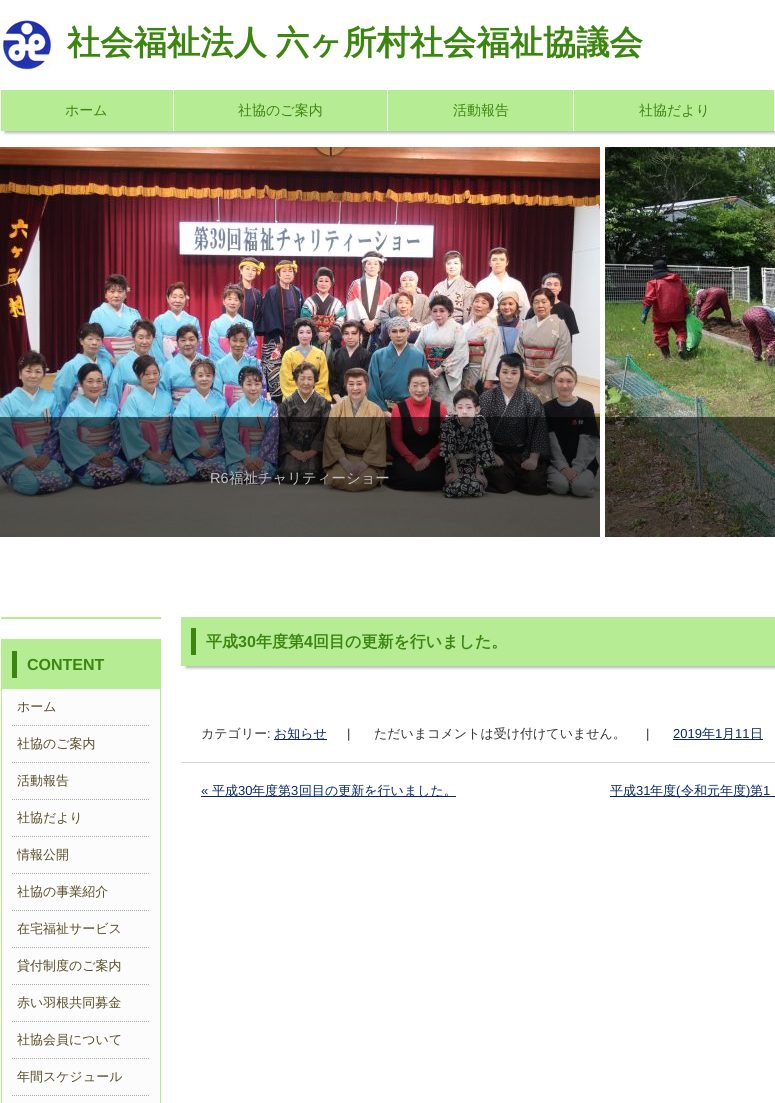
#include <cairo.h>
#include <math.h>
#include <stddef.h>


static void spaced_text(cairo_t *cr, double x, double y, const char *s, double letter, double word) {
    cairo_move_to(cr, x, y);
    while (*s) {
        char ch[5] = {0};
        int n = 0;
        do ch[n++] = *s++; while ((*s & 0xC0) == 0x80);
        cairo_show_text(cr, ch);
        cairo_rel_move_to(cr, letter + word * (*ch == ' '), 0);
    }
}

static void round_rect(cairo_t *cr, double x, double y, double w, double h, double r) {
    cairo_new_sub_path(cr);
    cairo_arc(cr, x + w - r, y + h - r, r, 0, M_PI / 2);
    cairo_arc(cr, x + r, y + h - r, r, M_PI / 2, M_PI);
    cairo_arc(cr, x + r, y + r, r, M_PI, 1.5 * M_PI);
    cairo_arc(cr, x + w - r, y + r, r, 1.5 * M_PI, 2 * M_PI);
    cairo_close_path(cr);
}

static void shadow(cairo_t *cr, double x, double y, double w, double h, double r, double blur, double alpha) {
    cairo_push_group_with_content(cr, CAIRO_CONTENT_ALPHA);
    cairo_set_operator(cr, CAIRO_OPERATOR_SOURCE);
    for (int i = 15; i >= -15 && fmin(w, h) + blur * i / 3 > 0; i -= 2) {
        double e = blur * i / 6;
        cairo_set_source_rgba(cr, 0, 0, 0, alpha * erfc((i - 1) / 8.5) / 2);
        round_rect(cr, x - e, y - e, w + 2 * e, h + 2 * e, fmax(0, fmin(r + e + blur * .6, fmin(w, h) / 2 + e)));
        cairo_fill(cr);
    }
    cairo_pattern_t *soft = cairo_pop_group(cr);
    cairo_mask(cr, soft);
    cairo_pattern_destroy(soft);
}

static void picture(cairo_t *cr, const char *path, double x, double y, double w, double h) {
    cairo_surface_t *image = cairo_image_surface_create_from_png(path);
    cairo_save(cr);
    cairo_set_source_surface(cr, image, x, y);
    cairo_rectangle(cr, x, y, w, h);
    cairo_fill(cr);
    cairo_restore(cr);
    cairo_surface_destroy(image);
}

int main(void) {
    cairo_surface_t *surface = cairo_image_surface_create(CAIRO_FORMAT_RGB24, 775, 1103);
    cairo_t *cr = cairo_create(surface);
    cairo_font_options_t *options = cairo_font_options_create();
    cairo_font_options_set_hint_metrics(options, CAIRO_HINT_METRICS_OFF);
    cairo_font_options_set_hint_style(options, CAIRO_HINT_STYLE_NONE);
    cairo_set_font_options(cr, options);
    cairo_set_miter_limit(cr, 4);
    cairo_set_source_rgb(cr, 1, 1, 1);
    cairo_paint(cr);
    picture(cr, "img1.png", 0, 20, 51, 50);
    cairo_select_font_face(cr, "WenQuanYi Zen Hei", CAIRO_FONT_SLANT_NORMAL, CAIRO_FONT_WEIGHT_BOLD);
    cairo_set_font_size(cr, 33.3);
    cairo_set_source_rgb(cr, 0.231, 0.525, 0.059);
    spaced_text(cr, 67, 54, "社会福祉法人 六ヶ所村社会福祉協議会", 0, -1);
    cairo_set_source_rgb(cr, 0, 0, 0);
    shadow(cr, 5, 102, 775, 31, 0, 1.5, 0.3);
    cairo_set_source_rgb(cr, 0.71, 0.925, 0.58);
    cairo_rectangle(cr, 1, 90, 773, 41);
    cairo_fill(cr);
    cairo_set_source_rgb(cr, 1, 1, 1);
    cairo_rectangle(cr, 173, 90, 1, 41);
    cairo_fill(cr);
    cairo_select_font_face(cr, "WenQuanYi Zen Hei Medium", CAIRO_FONT_SLANT_NORMAL, CAIRO_FONT_WEIGHT_NORMAL);
    cairo_set_font_size(cr, 14);
    cairo_set_source_rgb(cr, 0.231, 0.525, 0.059);
    cairo_move_to(cr, 65, 115);
    cairo_show_text(cr, "ホーム");
    cairo_set_source_rgb(cr, 1, 1, 1);
    cairo_rectangle(cr, 387, 90, 1, 41);
    cairo_fill(cr);
    cairo_set_source_rgb(cr, 0.231, 0.525, 0.059);
    cairo_move_to(cr, 238, 115);
    cairo_show_text(cr, "社協のご案内");
    cairo_set_source_rgb(cr, 1, 1, 1);
    cairo_rectangle(cr, 573, 90, 1, 41);
    cairo_fill(cr);
    cairo_set_source_rgb(cr, 0.231, 0.525, 0.059);
    cairo_move_to(cr, 453, 115);
    cairo_show_text(cr, "活動報告");
    cairo_set_source_rgb(cr, 1, 1, 1);
    cairo_rectangle(cr, 774, 99, 1, 32);
    cairo_fill(cr);
    cairo_set_source_rgb(cr, 0.231, 0.525, 0.059);
    cairo_move_to(cr, 639, 115);
    cairo_show_text(cr, "社協だより");
    picture(cr, "img2.png", 0, 147, 600, 390);
    cairo_set_source_rgba(cr, 0, 0, 0, 0.56);
    cairo_rectangle(cr, 0, 417, 600, 120);
    cairo_fill(cr);
    cairo_select_font_face(cr, "Liberation Sans", CAIRO_FONT_SLANT_NORMAL, CAIRO_FONT_WEIGHT_NORMAL);
    cairo_set_font_size(cr, 14.4);
    cairo_set_source_rgb(cr, 0.757, 0.757, 0.765);
    cairo_move_to(cr, 210, 483);
    cairo_show_text(cr, "R6");
    cairo_select_font_face(cr, "WenQuanYi Zen Hei Medium", CAIRO_FONT_SLANT_NORMAL, CAIRO_FONT_WEIGHT_NORMAL);
    cairo_move_to(cr, 229, 483);
    cairo_show_text(cr, "福祉チャリティーショー");
    picture(cr, "img3.png", 605, 147, 170, 390);
    cairo_set_source_rgba(cr, 0, 0, 0, 0.56);
    cairo_rectangle(cr, 605, 417, 170, 120);
    cairo_fill(cr);
    cairo_set_source_rgb(cr, 0.71, 0.925, 0.58);
    cairo_rectangle(cr, 1, 617, 160, 2);
    cairo_fill(cr);
    cairo_set_source_rgb(cr, 0.988, 0.988, 0.988);
    cairo_rectangle(cr, 2, 689, 158, 414);
    cairo_fill(cr);
    cairo_rectangle(cr, 1.5, 639.5, 159, 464);
    cairo_set_source_rgb(cr, 0.71, 0.925, 0.58);
    cairo_set_line_width(cr, 1);
    cairo_stroke(cr);
    cairo_rectangle(cr, 2, 640, 158, 49);
    cairo_fill(cr);
    cairo_set_source_rgb(cr, 0.231, 0.525, 0.059);
    cairo_rectangle(cr, 12, 651, 5, 27);
    cairo_fill(cr);
    cairo_select_font_face(cr, "Liberation Sans", CAIRO_FONT_SLANT_NORMAL, CAIRO_FONT_WEIGHT_BOLD);
    cairo_set_font_size(cr, 16);
    cairo_move_to(cr, 27, 670);
    cairo_show_text(cr, "CONTENT");
    cairo_new_path(cr);
    cairo_move_to(cr, 12, 725.5);
    cairo_line_to(cr, 150, 725.5);
    cairo_set_source_rgb(cr, 0.671, 0.671, 0.671);
    cairo_set_dash(cr, (double[]){1, 1}, 2, 0);
    cairo_stroke(cr);
    cairo_select_font_face(cr, "WenQuanYi Zen Hei Medium", CAIRO_FONT_SLANT_NORMAL, CAIRO_FONT_WEIGHT_NORMAL);
    cairo_set_font_size(cr, 13);
    cairo_set_source_rgb(cr, 0.349, 0.294, 0.145);
    cairo_move_to(cr, 17, 711);
    cairo_show_text(cr, "ホーム");
    cairo_new_path(cr);
    cairo_move_to(cr, 12, 762.5);
    cairo_line_to(cr, 150, 762.5);
    cairo_set_source_rgb(cr, 0.671, 0.671, 0.671);
    cairo_stroke(cr);
    cairo_set_source_rgb(cr, 0.349, 0.294, 0.145);
    cairo_move_to(cr, 17, 748);
    cairo_show_text(cr, "社協のご案内");
    cairo_new_path(cr);
    cairo_move_to(cr, 12, 799.5);
    cairo_line_to(cr, 150, 799.5);
    cairo_set_source_rgb(cr, 0.671, 0.671, 0.671);
    cairo_stroke(cr);
    cairo_set_source_rgb(cr, 0.349, 0.294, 0.145);
    cairo_move_to(cr, 17, 785);
    cairo_show_text(cr, "活動報告");
    cairo_new_path(cr);
    cairo_move_to(cr, 12, 836.5);
    cairo_line_to(cr, 150, 836.5);
    cairo_set_source_rgb(cr, 0.671, 0.671, 0.671);
    cairo_stroke(cr);
    cairo_set_source_rgb(cr, 0.349, 0.294, 0.145);
    cairo_move_to(cr, 17, 822);
    cairo_show_text(cr, "社協だより");
    cairo_new_path(cr);
    cairo_move_to(cr, 12, 873.5);
    cairo_line_to(cr, 150, 873.5);
    cairo_set_source_rgb(cr, 0.671, 0.671, 0.671);
    cairo_stroke(cr);
    cairo_set_source_rgb(cr, 0.349, 0.294, 0.145);
    cairo_move_to(cr, 17, 859);
    cairo_show_text(cr, "情報公開");
    cairo_new_path(cr);
    cairo_move_to(cr, 12, 910.5);
    cairo_line_to(cr, 150, 910.5);
    cairo_set_source_rgb(cr, 0.671, 0.671, 0.671);
    cairo_stroke(cr);
    cairo_set_source_rgb(cr, 0.349, 0.294, 0.145);
    cairo_move_to(cr, 17, 896);
    cairo_show_text(cr, "社協の事業紹介");
    cairo_new_path(cr);
    cairo_move_to(cr, 12, 947.5);
    cairo_line_to(cr, 150, 947.5);
    cairo_set_source_rgb(cr, 0.671, 0.671, 0.671);
    cairo_stroke(cr);
    cairo_set_source_rgb(cr, 0.349, 0.294, 0.145);
    cairo_move_to(cr, 17, 933);
    cairo_show_text(cr, "在宅福祉サービス");
    cairo_new_path(cr);
    cairo_move_to(cr, 12, 984.5);
    cairo_line_to(cr, 150, 984.5);
    cairo_set_source_rgb(cr, 0.671, 0.671, 0.671);
    cairo_stroke(cr);
    cairo_set_source_rgb(cr, 0.349, 0.294, 0.145);
    cairo_move_to(cr, 17, 970);
    cairo_show_text(cr, "貸付制度のご案内");
    cairo_new_path(cr);
    cairo_move_to(cr, 12, 1021.5);
    cairo_line_to(cr, 150, 1021.5);
    cairo_set_source_rgb(cr, 0.671, 0.671, 0.671);
    cairo_stroke(cr);
    cairo_set_source_rgb(cr, 0.349, 0.294, 0.145);
    cairo_move_to(cr, 17, 1007);
    cairo_show_text(cr, "赤い羽根共同募金");
    cairo_new_path(cr);
    cairo_move_to(cr, 12, 1058.5);
    cairo_line_to(cr, 150, 1058.5);
    cairo_set_source_rgb(cr, 0.671, 0.671, 0.671);
    cairo_stroke(cr);
    cairo_set_source_rgb(cr, 0.349, 0.294, 0.145);
    cairo_move_to(cr, 17, 1044);
    cairo_show_text(cr, "社協会員について");
    cairo_new_path(cr);
    cairo_move_to(cr, 12, 1095.5);
    cairo_line_to(cr, 150, 1095.5);
    cairo_set_source_rgb(cr, 0.671, 0.671, 0.671);
    cairo_stroke(cr);
    cairo_set_source_rgb(cr, 0.349, 0.294, 0.145);
    cairo_move_to(cr, 17, 1081);
    cairo_show_text(cr, "年間スケジュール");
    cairo_set_source_rgb(cr, 0, 0, 0);
    shadow(cr, 186, 629, 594, 39, 0, 1.5, 0.3);
    cairo_set_source_rgb(cr, 0.71, 0.925, 0.58);
    cairo_rectangle(cr, 181, 617, 594, 49);
    cairo_fill(cr);
    cairo_set_source_rgb(cr, 0.231, 0.525, 0.059);
    cairo_rectangle(cr, 191, 628, 5, 27);
    cairo_fill(cr);
    cairo_select_font_face(cr, "WenQuanYi Zen Hei", CAIRO_FONT_SLANT_NORMAL, CAIRO_FONT_WEIGHT_BOLD);
    cairo_set_font_size(cr, 16);
    cairo_move_to(cr, 206, 647);
    cairo_show_text(cr, "平成");
    cairo_select_font_face(cr, "Liberation Sans", CAIRO_FONT_SLANT_NORMAL, CAIRO_FONT_WEIGHT_BOLD);
    cairo_move_to(cr, 238, 647);
    cairo_show_text(cr, "30");
    cairo_select_font_face(cr, "WenQuanYi Zen Hei", CAIRO_FONT_SLANT_NORMAL, CAIRO_FONT_WEIGHT_BOLD);
    cairo_move_to(cr, 256, 647);
    cairo_show_text(cr, "年度第");
    cairo_select_font_face(cr, "Liberation Sans", CAIRO_FONT_SLANT_NORMAL, CAIRO_FONT_WEIGHT_BOLD);
    cairo_move_to(cr, 304, 647);
    cairo_show_text(cr, "4");
    cairo_select_font_face(cr, "WenQuanYi Zen Hei", CAIRO_FONT_SLANT_NORMAL, CAIRO_FONT_WEIGHT_BOLD);
    cairo_move_to(cr, 313, 647);
    cairo_show_text(cr, "回目の更新を行いました。");
    cairo_select_font_face(cr, "WenQuanYi Zen Hei Medium", CAIRO_FONT_SLANT_NORMAL, CAIRO_FONT_WEIGHT_NORMAL);
    cairo_set_font_size(cr, 13);
    cairo_set_source_rgb(cr, 0.2, 0.2, 0.2);
    cairo_move_to(cr, 201, 738);
    cairo_show_text(cr, "カテゴリー");
    cairo_select_font_face(cr, "Liberation Sans", CAIRO_FONT_SLANT_NORMAL, CAIRO_FONT_WEIGHT_NORMAL);
    cairo_move_to(cr, 267, 738);
    cairo_show_text(cr, ":");
    cairo_set_source_rgb(cr, 0.031, 0.153, 0.416);
    cairo_rectangle(cr, 274, 739, 53, 1);
    cairo_fill(cr);
    cairo_select_font_face(cr, "WenQuanYi Zen Hei Medium", CAIRO_FONT_SLANT_NORMAL, CAIRO_FONT_WEIGHT_NORMAL);
    cairo_move_to(cr, 274, 738);
    cairo_show_text(cr, "お知らせ");
    cairo_select_font_face(cr, "Liberation Sans", CAIRO_FONT_SLANT_NORMAL, CAIRO_FONT_WEIGHT_NORMAL);
    cairo_set_source_rgb(cr, 0.2, 0.2, 0.2);
    cairo_move_to(cr, 347, 738);
    cairo_show_text(cr, "|");
    cairo_select_font_face(cr, "WenQuanYi Zen Hei Medium", CAIRO_FONT_SLANT_NORMAL, CAIRO_FONT_WEIGHT_NORMAL);
    cairo_move_to(cr, 374, 738);
    cairo_show_text(cr, "ただいまコメントは受け付けていません。");
    cairo_select_font_face(cr, "Liberation Sans", CAIRO_FONT_SLANT_NORMAL, CAIRO_FONT_WEIGHT_NORMAL);
    cairo_move_to(cr, 646, 738);
    cairo_show_text(cr, "|");
    cairo_set_source_rgb(cr, 0.031, 0.153, 0.416);
    cairo_move_to(cr, 673, 738);
    cairo_show_text(cr, "2019");
    cairo_rectangle(cr, 673, 739, 90, 1);
    cairo_fill(cr);
    cairo_select_font_face(cr, "WenQuanYi Zen Hei Medium", CAIRO_FONT_SLANT_NORMAL, CAIRO_FONT_WEIGHT_NORMAL);
    cairo_move_to(cr, 702, 738);
    cairo_show_text(cr, "年");
    cairo_select_font_face(cr, "Liberation Sans", CAIRO_FONT_SLANT_NORMAL, CAIRO_FONT_WEIGHT_NORMAL);
    cairo_move_to(cr, 715, 738);
    cairo_show_text(cr, "1");
    cairo_select_font_face(cr, "WenQuanYi Zen Hei Medium", CAIRO_FONT_SLANT_NORMAL, CAIRO_FONT_WEIGHT_NORMAL);
    cairo_move_to(cr, 722, 738);
    cairo_show_text(cr, "月");
    cairo_select_font_face(cr, "Liberation Sans", CAIRO_FONT_SLANT_NORMAL, CAIRO_FONT_WEIGHT_NORMAL);
    cairo_move_to(cr, 735, 738);
    cairo_show_text(cr, "11");
    cairo_select_font_face(cr, "WenQuanYi Zen Hei Medium", CAIRO_FONT_SLANT_NORMAL, CAIRO_FONT_WEIGHT_NORMAL);
    cairo_move_to(cr, 750, 738);
    cairo_show_text(cr, "日");
    cairo_set_source_rgb(cr, 0.835, 0.835, 0.835);
    cairo_rectangle(cr, 181, 762, 594, 1);
    cairo_fill(cr);
    cairo_select_font_face(cr, "Liberation Sans", CAIRO_FONT_SLANT_NORMAL, CAIRO_FONT_WEIGHT_NORMAL);
    cairo_set_source_rgb(cr, 0.031, 0.153, 0.416);
    cairo_move_to(cr, 201, 795);
    cairo_show_text(cr, "«");
    cairo_rectangle(cr, 201, 796, 255, 1);
    cairo_fill(cr);
    cairo_select_font_face(cr, "WenQuanYi Zen Hei Medium", CAIRO_FONT_SLANT_NORMAL, CAIRO_FONT_WEIGHT_NORMAL);
    cairo_move_to(cr, 212, 795);
    cairo_show_text(cr, "平成");
    cairo_select_font_face(cr, "Liberation Sans", CAIRO_FONT_SLANT_NORMAL, CAIRO_FONT_WEIGHT_NORMAL);
    cairo_move_to(cr, 238, 795);
    cairo_show_text(cr, "30");
    cairo_select_font_face(cr, "WenQuanYi Zen Hei Medium", CAIRO_FONT_SLANT_NORMAL, CAIRO_FONT_WEIGHT_NORMAL);
    cairo_move_to(cr, 252, 795);
    cairo_show_text(cr, "年度第");
    cairo_select_font_face(cr, "Liberation Sans", CAIRO_FONT_SLANT_NORMAL, CAIRO_FONT_WEIGHT_NORMAL);
    cairo_move_to(cr, 291, 795);
    cairo_show_text(cr, "3");
    cairo_select_font_face(cr, "WenQuanYi Zen Hei Medium", CAIRO_FONT_SLANT_NORMAL, CAIRO_FONT_WEIGHT_NORMAL);
    cairo_move_to(cr, 299, 795);
    cairo_show_text(cr, "回目の更新を行いました。");
    cairo_rectangle(cr, 610, 796, 165, 1);
    cairo_fill(cr);
    cairo_move_to(cr, 610, 795);
    cairo_show_text(cr, "平成");
    cairo_select_font_face(cr, "Liberation Sans", CAIRO_FONT_SLANT_NORMAL, CAIRO_FONT_WEIGHT_NORMAL);
    cairo_move_to(cr, 636, 795);
    cairo_show_text(cr, "31");
    cairo_select_font_face(cr, "WenQuanYi Zen Hei Medium", CAIRO_FONT_SLANT_NORMAL, CAIRO_FONT_WEIGHT_NORMAL);
    cairo_move_to(cr, 650, 795);
    cairo_show_text(cr, "年度");
    cairo_select_font_face(cr, "Liberation Sans", CAIRO_FONT_SLANT_NORMAL, CAIRO_FONT_WEIGHT_NORMAL);
    cairo_move_to(cr, 676, 795);
    cairo_show_text(cr, "(");
    cairo_select_font_face(cr, "WenQuanYi Zen Hei Medium", CAIRO_FONT_SLANT_NORMAL, CAIRO_FONT_WEIGHT_NORMAL);
    cairo_move_to(cr, 681, 795);
    cairo_show_text(cr, "令和元年度");
    cairo_select_font_face(cr, "Liberation Sans", CAIRO_FONT_SLANT_NORMAL, CAIRO_FONT_WEIGHT_NORMAL);
    cairo_move_to(cr, 746, 795);
    cairo_show_text(cr, ")");
    cairo_select_font_face(cr, "WenQuanYi Zen Hei Medium", CAIRO_FONT_SLANT_NORMAL, CAIRO_FONT_WEIGHT_NORMAL);
    cairo_move_to(cr, 750, 795);
    cairo_show_text(cr, "第");
    cairo_select_font_face(cr, "Liberation Sans", CAIRO_FONT_SLANT_NORMAL, CAIRO_FONT_WEIGHT_NORMAL);
    cairo_move_to(cr, 763, 795);
    cairo_show_text(cr, "1");
    cairo_surface_write_to_png(surface, "page.png");
    cairo_font_options_destroy(options);
    cairo_destroy(cr);
    cairo_surface_destroy(surface);
    return 0;
}
